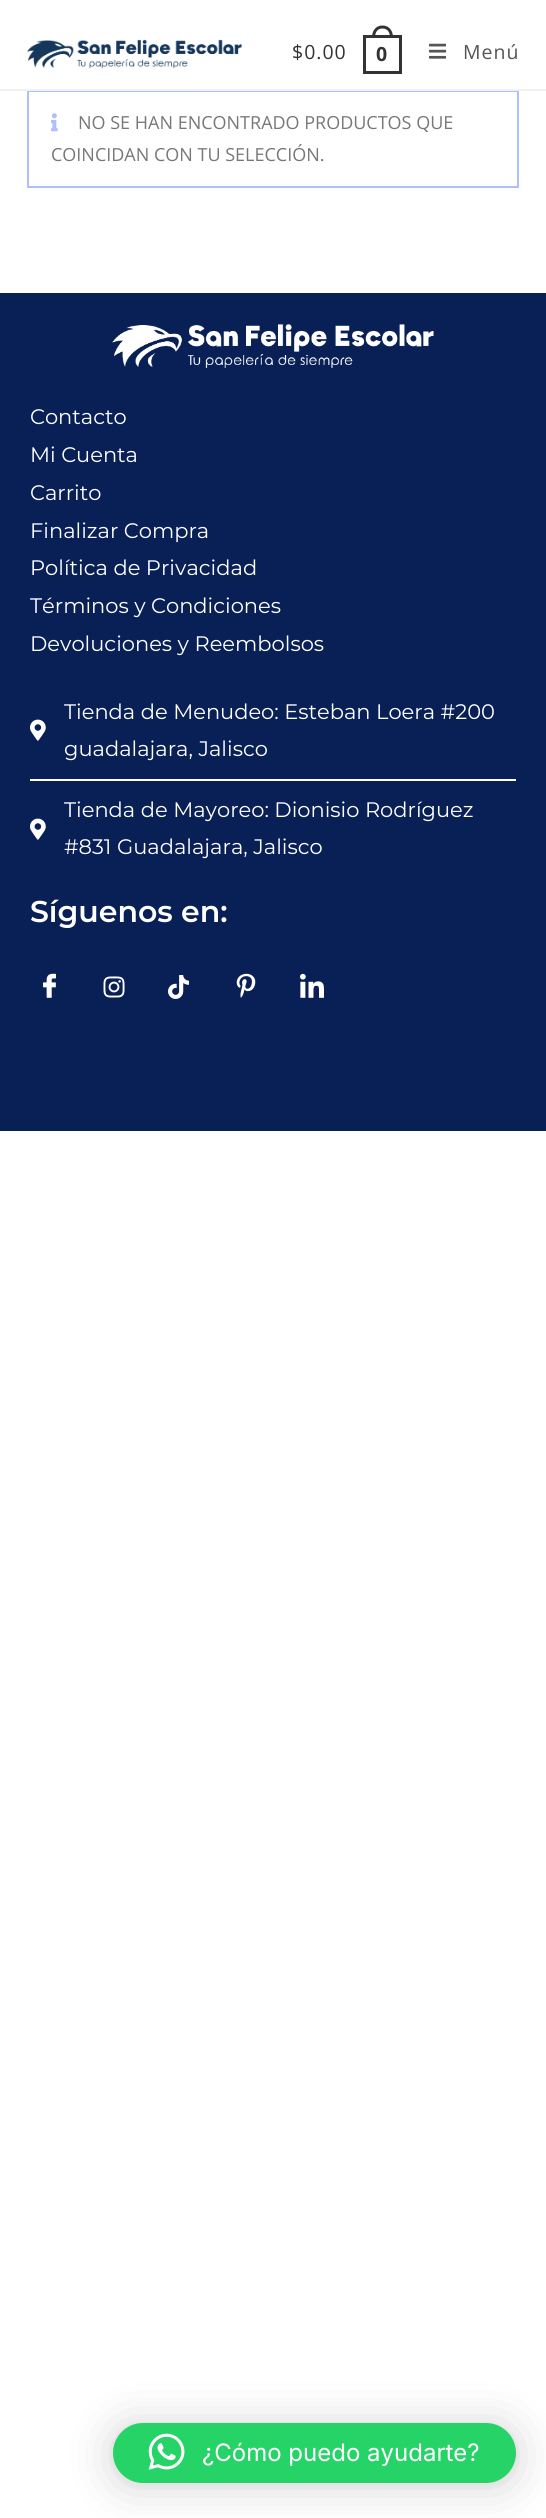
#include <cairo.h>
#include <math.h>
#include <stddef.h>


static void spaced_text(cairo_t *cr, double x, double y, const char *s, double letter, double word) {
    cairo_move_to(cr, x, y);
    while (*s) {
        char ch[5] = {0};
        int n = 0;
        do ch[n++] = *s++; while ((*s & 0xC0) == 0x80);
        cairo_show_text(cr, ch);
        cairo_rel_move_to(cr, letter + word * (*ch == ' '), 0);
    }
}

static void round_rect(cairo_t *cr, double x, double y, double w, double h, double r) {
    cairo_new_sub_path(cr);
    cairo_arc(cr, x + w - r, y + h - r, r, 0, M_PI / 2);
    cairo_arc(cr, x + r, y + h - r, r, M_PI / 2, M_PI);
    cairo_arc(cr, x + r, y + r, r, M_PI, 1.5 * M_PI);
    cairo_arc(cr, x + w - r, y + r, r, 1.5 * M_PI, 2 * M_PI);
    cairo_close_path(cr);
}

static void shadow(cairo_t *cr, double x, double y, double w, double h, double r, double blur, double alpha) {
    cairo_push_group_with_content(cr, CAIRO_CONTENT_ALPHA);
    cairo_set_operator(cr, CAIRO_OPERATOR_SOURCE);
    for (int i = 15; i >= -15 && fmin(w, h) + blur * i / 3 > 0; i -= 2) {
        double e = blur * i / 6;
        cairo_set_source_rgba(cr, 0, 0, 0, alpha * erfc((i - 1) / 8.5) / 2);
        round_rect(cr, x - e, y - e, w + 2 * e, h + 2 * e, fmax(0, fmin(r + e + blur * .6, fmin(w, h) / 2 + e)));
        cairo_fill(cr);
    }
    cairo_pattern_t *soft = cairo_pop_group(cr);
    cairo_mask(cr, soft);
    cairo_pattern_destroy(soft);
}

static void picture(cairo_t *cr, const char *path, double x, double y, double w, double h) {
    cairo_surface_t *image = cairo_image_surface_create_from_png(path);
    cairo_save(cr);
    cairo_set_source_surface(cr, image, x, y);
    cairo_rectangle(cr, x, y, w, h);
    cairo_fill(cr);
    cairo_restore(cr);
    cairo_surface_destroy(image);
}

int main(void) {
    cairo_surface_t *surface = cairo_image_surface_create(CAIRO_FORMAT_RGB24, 546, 2518);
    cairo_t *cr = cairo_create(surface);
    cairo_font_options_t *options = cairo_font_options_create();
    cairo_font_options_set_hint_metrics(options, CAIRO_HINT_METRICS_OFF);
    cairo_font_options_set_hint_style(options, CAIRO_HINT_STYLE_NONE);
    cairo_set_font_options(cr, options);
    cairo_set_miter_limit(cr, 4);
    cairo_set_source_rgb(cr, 1, 1, 1);
    cairo_paint(cr);
    cairo_rectangle(cr, 28, 91, 490, 96);
    cairo_set_source_rgb(cr, 0.694, 0.745, 0.992);
    cairo_stroke(cr);
    cairo_set_source_rgb(cr, 0.945, 0.945, 0.945);
    cairo_rectangle(cr, 0, 89, 546, 2);
    cairo_fill(cr);
    picture(cr, "img1.png", 27, 39, 215, 30);
    cairo_select_font_face(cr, "Open Sans", CAIRO_FONT_SLANT_NORMAL, CAIRO_FONT_WEIGHT_NORMAL);
    cairo_set_font_size(cr, 19.5);
    cairo_set_source_rgb(cr, 0.2, 0.2, 0.2);
    spaced_text(cr, 292, 59, "$0.00", 1, 0);
    cairo_rectangle(cr, 364.5, 36.5, 36, 36);
    cairo_set_line_width(cr, 3);
    cairo_stroke(cr);
    cairo_set_fill_rule(cr, CAIRO_FILL_RULE_EVEN_ODD);
    cairo_new_path(cr);
    cairo_move_to(cr, 382.5, 25.5);
    cairo_curve_to(cr, 389.5, 25.5, 393, 31, 393, 37.5);
    cairo_line_to(cr, 372, 37.5);
    cairo_curve_to(cr, 372, 31, 375.5, 25.5, 382.5, 25.5);
    cairo_close_path(cr);
    cairo_move_to(cr, 382.5, 28.5);
    cairo_curve_to(cr, 388, 28.5, 390, 33, 390, 37.5);
    cairo_line_to(cr, 375, 37.5);
    cairo_curve_to(cr, 375, 33, 377, 28.5, 382.5, 28.5);
    cairo_close_path(cr);
    cairo_fill(cr);
    cairo_select_font_face(cr, "Open Sans", CAIRO_FONT_SLANT_NORMAL, CAIRO_FONT_WEIGHT_BOLD);
    spaced_text(cr, 376, 61, "0", 1, 0);
    picture(cr, "img2.png", 429, 43, 18, 16);
    cairo_select_font_face(cr, "Open Sans", CAIRO_FONT_SLANT_NORMAL, CAIRO_FONT_WEIGHT_NORMAL);
    cairo_set_source_rgb(cr, 0.333, 0.333, 0.333);
    spaced_text(cr, 463, 59, "Menú", 1, 0);
    picture(cr, "img3.png", 51, 113, 7, 19);
    cairo_set_font_size(cr, 18);
    cairo_set_source_rgb(cr, 0.467, 0.467, 0.467);
    cairo_move_to(cr, 78, 129);
    cairo_show_text(cr, "NO SE HAN ENCONTRADO PRODUCTOS QUE");
    cairo_move_to(cr, 51, 161);
    cairo_show_text(cr, "COINCIDAN CON TU SELECCIÓN.");
    cairo_set_source_rgb(cr, 0.039, 0.125, 0.337);
    cairo_rectangle(cr, 0, 293, 546, 838);
    cairo_fill(cr);
    picture(cr, "img4.png", 112, 324, 322, 44);
    cairo_select_font_face(cr, "Montserrat", CAIRO_FONT_SLANT_NORMAL, CAIRO_FONT_WEIGHT_NORMAL);
    cairo_set_font_size(cr, 21);
    cairo_set_source_rgb(cr, 1, 1, 1);
    cairo_move_to(cr, 30, 424);
    cairo_show_text(cr, "Contacto");
    cairo_move_to(cr, 30, 462);
    cairo_show_text(cr, "Mi Cuenta");
    cairo_move_to(cr, 30, 500);
    cairo_show_text(cr, "Carrito");
    cairo_move_to(cr, 30, 538);
    cairo_show_text(cr, "Finalizar Compra");
    cairo_move_to(cr, 30, 575);
    cairo_show_text(cr, "Política de Privacidad");
    cairo_move_to(cr, 30, 613);
    cairo_show_text(cr, "Términos y Condiciones");
    cairo_move_to(cr, 30, 651);
    cairo_show_text(cr, "Devoluciones y Reembolsos");
    picture(cr, "img5.png", 30, 719, 16, 22);
    cairo_move_to(cr, 64, 719);
    cairo_show_text(cr, "Tienda de Menudeo: Esteban Loera #200");
    cairo_move_to(cr, 64, 756);
    cairo_show_text(cr, "guadalajara, Jalisco");
    cairo_rectangle(cr, 30, 779, 486, 2);
    cairo_fill(cr);
    picture(cr, "img5.png", 30, 818, 16, 22);
    cairo_move_to(cr, 64, 817);
    cairo_show_text(cr, "Tienda de Mayoreo: Dionisio Rodríguez");
    cairo_move_to(cr, 64, 854);
    cairo_show_text(cr, "#831 Guadalajara, Jalisco");
    cairo_select_font_face(cr, "Montserrat SemiBold", CAIRO_FONT_SLANT_NORMAL, CAIRO_FONT_WEIGHT_NORMAL);
    cairo_set_font_size(cr, 30);
    cairo_move_to(cr, 30, 922);
    cairo_show_text(cr, "Síguenos en:");
    picture(cr, "img6.png", 43, 973, 13, 25);
    picture(cr, "img7.png", 103, 976, 22, 22);
    picture(cr, "img8.png", 168, 975, 21, 24);
    picture(cr, "img9.png", 236, 973, 20, 25);
    picture(cr, "img10.png", 300, 973, 24, 25);
    cairo_set_source_rgb(cr, 0, 0, 0);
    shadow(cr, 113, 2426, 403, 60, 30, 24, 0.16);
    shadow(cr, 113, 2424, 403, 60, 30, 4.5, 0.06);
    cairo_set_source_rgb(cr, 0.145, 0.827, 0.4);
    round_rect(cr, 113, 2423, 403, 60, 30);
    cairo_fill(cr);
    picture(cr, "img11.png", 148, 2433, 37, 37);
    cairo_select_font_face(cr, "Inter", CAIRO_FONT_SLANT_NORMAL, CAIRO_FONT_WEIGHT_NORMAL);
    cairo_set_font_size(cr, 24);
    cairo_set_source_rgb(cr, 1, 1, 1);
    cairo_move_to(cr, 202, 2461);
    cairo_show_text(cr, "¿Cómo puedo ayudarte?");
    cairo_surface_write_to_png(surface, "page.png");
    cairo_font_options_destroy(options);
    cairo_destroy(cr);
    cairo_surface_destroy(surface);
    return 0;
}
